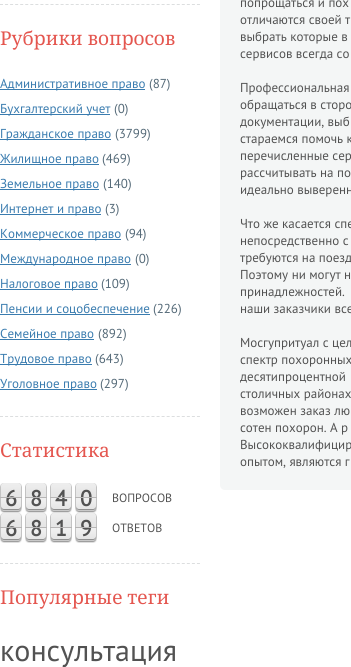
#include <cairo.h>
#include <math.h>
#include <stddef.h>


static void round_rect(cairo_t *cr, double x, double y, double w, double h, double r) {
    cairo_new_sub_path(cr);
    cairo_arc(cr, x + w - r, y + h - r, r, 0, M_PI / 2);
    cairo_arc(cr, x + r, y + h - r, r, M_PI / 2, M_PI);
    cairo_arc(cr, x + r, y + r, r, M_PI, 1.5 * M_PI);
    cairo_arc(cr, x + w - r, y + r, r, 1.5 * M_PI, 2 * M_PI);
    cairo_close_path(cr);
}

static void picture(cairo_t *cr, const char *path, double x, double y, double w, double h) {
    cairo_surface_t *image = cairo_image_surface_create_from_png(path);
    cairo_save(cr);
    cairo_set_source_surface(cr, image, x, y);
    cairo_rectangle(cr, x, y, w, h);
    cairo_fill(cr);
    cairo_restore(cr);
    cairo_surface_destroy(image);
}

int main(void) {
    cairo_surface_t *surface = cairo_image_surface_create(CAIRO_FORMAT_RGB24, 351, 667);
    cairo_t *cr = cairo_create(surface);
    cairo_font_options_t *options = cairo_font_options_create();
    cairo_font_options_set_hint_metrics(options, CAIRO_HINT_METRICS_OFF);
    cairo_font_options_set_hint_style(options, CAIRO_HINT_STYLE_NONE);
    cairo_set_font_options(cr, options);
    cairo_set_miter_limit(cr, 4);
    cairo_set_source_rgb(cr, 1, 1, 1);
    cairo_paint(cr);
    cairo_new_path(cr);
    cairo_move_to(cr, 0, 4.5);
    cairo_line_to(cr, 200, 4.5);
    cairo_set_source_rgb(cr, 0.863, 0.871, 0.875);
    cairo_set_line_width(cr, 1);
    cairo_set_dash(cr, (double[]){3, 2.05}, 2, 0);
    cairo_stroke(cr);
    cairo_select_font_face(cr, "Noto Serif", CAIRO_FONT_SLANT_NORMAL, CAIRO_FONT_WEIGHT_NORMAL);
    cairo_set_font_size(cr, 19);
    cairo_set_source_rgb(cr, 0.894, 0.337, 0.31);
    cairo_move_to(cr, 0, 45);
    cairo_show_text(cr, "Рубрики вопросов");
    cairo_set_source_rgb(cr, 0.227, 0.486, 0.686);
    cairo_rectangle(cr, 0, 89, 145, 1);
    cairo_fill(cr);
    cairo_select_font_face(cr, "PT Sans", CAIRO_FONT_SLANT_NORMAL, CAIRO_FONT_WEIGHT_NORMAL);
    cairo_set_font_size(cr, 13);
    cairo_move_to(cr, 0, 88);
    cairo_show_text(cr, "Административное право");
    cairo_set_source_rgb(cr, 0.333, 0.416, 0.471);
    cairo_move_to(cr, 149, 88);
    cairo_show_text(cr, "(87)");
    cairo_set_source_rgb(cr, 0.227, 0.486, 0.686);
    cairo_rectangle(cr, 0, 114, 110, 1);
    cairo_fill(cr);
    cairo_move_to(cr, 0, 113);
    cairo_show_text(cr, "Бухгалтерский учет");
    cairo_set_source_rgb(cr, 0.333, 0.416, 0.471);
    cairo_move_to(cr, 114, 113);
    cairo_show_text(cr, "(0)");
    cairo_set_source_rgb(cr, 0.227, 0.486, 0.686);
    cairo_rectangle(cr, 0, 139, 111, 1);
    cairo_fill(cr);
    cairo_move_to(cr, 0, 138);
    cairo_show_text(cr, "Гражданское право");
    cairo_set_source_rgb(cr, 0.333, 0.416, 0.471);
    cairo_move_to(cr, 115, 138);
    cairo_show_text(cr, "(3799)");
    cairo_set_source_rgb(cr, 0.227, 0.486, 0.686);
    cairo_rectangle(cr, 0, 164, 99, 1);
    cairo_fill(cr);
    cairo_move_to(cr, 0, 163);
    cairo_show_text(cr, "Жилищное право");
    cairo_set_source_rgb(cr, 0.333, 0.416, 0.471);
    cairo_move_to(cr, 102, 163);
    cairo_show_text(cr, "(469)");
    cairo_set_source_rgb(cr, 0.227, 0.486, 0.686);
    cairo_rectangle(cr, 0, 189, 99, 1);
    cairo_fill(cr);
    cairo_move_to(cr, 0, 188);
    cairo_show_text(cr, "Земельное право");
    cairo_set_source_rgb(cr, 0.333, 0.416, 0.471);
    cairo_move_to(cr, 103, 188);
    cairo_show_text(cr, "(140)");
    cairo_set_source_rgb(cr, 0.227, 0.486, 0.686);
    cairo_rectangle(cr, 0, 214, 101, 1);
    cairo_fill(cr);
    cairo_move_to(cr, 0, 213);
    cairo_show_text(cr, "Интернет и право");
    cairo_set_source_rgb(cr, 0.333, 0.416, 0.471);
    cairo_move_to(cr, 105, 213);
    cairo_show_text(cr, "(3)");
    cairo_set_source_rgb(cr, 0.227, 0.486, 0.686);
    cairo_rectangle(cr, 0, 239, 121, 1);
    cairo_fill(cr);
    cairo_move_to(cr, 0, 238);
    cairo_show_text(cr, "Коммерческое право");
    cairo_set_source_rgb(cr, 0.333, 0.416, 0.471);
    cairo_move_to(cr, 125, 238);
    cairo_show_text(cr, "(94)");
    cairo_set_source_rgb(cr, 0.227, 0.486, 0.686);
    cairo_rectangle(cr, 0, 264, 131, 1);
    cairo_fill(cr);
    cairo_move_to(cr, 0, 263);
    cairo_show_text(cr, "Международное право");
    cairo_set_source_rgb(cr, 0.333, 0.416, 0.471);
    cairo_move_to(cr, 135, 263);
    cairo_show_text(cr, "(0)");
    cairo_set_source_rgb(cr, 0.227, 0.486, 0.686);
    cairo_rectangle(cr, 0, 289, 98, 1);
    cairo_fill(cr);
    cairo_move_to(cr, 0, 288);
    cairo_show_text(cr, "Налоговое право");
    cairo_set_source_rgb(cr, 0.333, 0.416, 0.471);
    cairo_move_to(cr, 101, 288);
    cairo_show_text(cr, "(109)");
    cairo_set_source_rgb(cr, 0.227, 0.486, 0.686);
    cairo_rectangle(cr, 0, 314, 150, 1);
    cairo_fill(cr);
    cairo_move_to(cr, 0, 313);
    cairo_show_text(cr, "Пенсии и соцобеспечение");
    cairo_set_source_rgb(cr, 0.333, 0.416, 0.471);
    cairo_move_to(cr, 153, 313);
    cairo_show_text(cr, "(226)");
    cairo_set_source_rgb(cr, 0.227, 0.486, 0.686);
    cairo_rectangle(cr, 0, 339, 94, 1);
    cairo_fill(cr);
    cairo_move_to(cr, 0, 338);
    cairo_show_text(cr, "Семейное право");
    cairo_set_source_rgb(cr, 0.333, 0.416, 0.471);
    cairo_move_to(cr, 98, 338);
    cairo_show_text(cr, "(892)");
    cairo_set_source_rgb(cr, 0.227, 0.486, 0.686);
    cairo_rectangle(cr, 0, 364, 92, 1);
    cairo_fill(cr);
    cairo_move_to(cr, 0, 363);
    cairo_show_text(cr, "Трудовое право");
    cairo_set_source_rgb(cr, 0.333, 0.416, 0.471);
    cairo_move_to(cr, 95, 363);
    cairo_show_text(cr, "(643)");
    cairo_set_source_rgb(cr, 0.227, 0.486, 0.686);
    cairo_rectangle(cr, 0, 389, 97, 1);
    cairo_fill(cr);
    cairo_move_to(cr, 0, 388);
    cairo_show_text(cr, "Уголовное право");
    cairo_set_source_rgb(cr, 0.333, 0.416, 0.471);
    cairo_move_to(cr, 100, 388);
    cairo_show_text(cr, "(297)");
    cairo_new_path(cr);
    cairo_move_to(cr, 0, 416.5);
    cairo_line_to(cr, 200, 416.5);
    cairo_set_source_rgb(cr, 0.863, 0.871, 0.875);
    cairo_stroke(cr);
    cairo_select_font_face(cr, "Noto Serif", CAIRO_FONT_SLANT_NORMAL, CAIRO_FONT_WEIGHT_NORMAL);
    cairo_set_font_size(cr, 19);
    cairo_set_source_rgb(cr, 0.894, 0.337, 0.31);
    cairo_move_to(cr, 0, 457);
    cairo_show_text(cr, "Статистика");
    picture(cr, "img1.png", 0, 483, 22, 30);
    cairo_select_font_face(cr, "PT Sans", CAIRO_FONT_SLANT_NORMAL, CAIRO_FONT_WEIGHT_BOLD);
    cairo_set_font_size(cr, 22);
    cairo_set_source_rgb(cr, 0.322, 0.322, 0.322);
    cairo_move_to(cr, 5, 506);
    cairo_show_text(cr, "6");
    cairo_set_source_rgb(cr, 0.714, 0.71, 0.71);
    cairo_rectangle(cr, 0, 497, 22, 1);
    cairo_fill(cr);
    picture(cr, "img1.png", 25, 483, 22, 30);
    cairo_set_source_rgb(cr, 0.322, 0.322, 0.322);
    cairo_move_to(cr, 30, 506);
    cairo_show_text(cr, "8");
    cairo_set_source_rgb(cr, 0.714, 0.71, 0.71);
    cairo_rectangle(cr, 25, 497, 22, 1);
    cairo_fill(cr);
    picture(cr, "img1.png", 50, 483, 22, 30);
    cairo_set_source_rgb(cr, 0.322, 0.322, 0.322);
    cairo_move_to(cr, 55, 506);
    cairo_show_text(cr, "4");
    cairo_set_source_rgb(cr, 0.714, 0.71, 0.71);
    cairo_rectangle(cr, 50, 497, 22, 1);
    cairo_fill(cr);
    picture(cr, "img1.png", 75, 483, 22, 30);
    cairo_set_source_rgb(cr, 0.322, 0.322, 0.322);
    cairo_move_to(cr, 80, 506);
    cairo_show_text(cr, "0");
    cairo_set_source_rgb(cr, 0.714, 0.71, 0.71);
    cairo_rectangle(cr, 75, 497, 22, 1);
    cairo_fill(cr);
    cairo_select_font_face(cr, "PT Sans", CAIRO_FONT_SLANT_NORMAL, CAIRO_FONT_WEIGHT_NORMAL);
    cairo_set_font_size(cr, 12);
    cairo_set_source_rgb(cr, 0.322, 0.322, 0.322);
    cairo_move_to(cr, 112, 502);
    cairo_show_text(cr, "ВОПРОСОВ");
    picture(cr, "img1.png", 0, 513, 22, 30);
    cairo_select_font_face(cr, "PT Sans", CAIRO_FONT_SLANT_NORMAL, CAIRO_FONT_WEIGHT_BOLD);
    cairo_set_font_size(cr, 22);
    cairo_move_to(cr, 5, 536);
    cairo_show_text(cr, "6");
    cairo_set_source_rgb(cr, 0.714, 0.71, 0.71);
    cairo_rectangle(cr, 0, 527, 22, 1);
    cairo_fill(cr);
    picture(cr, "img1.png", 25, 513, 22, 30);
    cairo_set_source_rgb(cr, 0.322, 0.322, 0.322);
    cairo_move_to(cr, 30, 536);
    cairo_show_text(cr, "8");
    cairo_set_source_rgb(cr, 0.714, 0.71, 0.71);
    cairo_rectangle(cr, 25, 527, 22, 1);
    cairo_fill(cr);
    picture(cr, "img1.png", 50, 513, 22, 30);
    cairo_set_source_rgb(cr, 0.322, 0.322, 0.322);
    cairo_move_to(cr, 55, 536);
    cairo_show_text(cr, "1");
    cairo_set_source_rgb(cr, 0.714, 0.71, 0.71);
    cairo_rectangle(cr, 50, 527, 22, 1);
    cairo_fill(cr);
    picture(cr, "img1.png", 75, 513, 22, 30);
    cairo_set_source_rgb(cr, 0.322, 0.322, 0.322);
    cairo_move_to(cr, 80, 536);
    cairo_show_text(cr, "9");
    cairo_set_source_rgb(cr, 0.714, 0.71, 0.71);
    cairo_rectangle(cr, 75, 527, 22, 1);
    cairo_fill(cr);
    cairo_select_font_face(cr, "PT Sans", CAIRO_FONT_SLANT_NORMAL, CAIRO_FONT_WEIGHT_NORMAL);
    cairo_set_font_size(cr, 12);
    cairo_set_source_rgb(cr, 0.322, 0.322, 0.322);
    cairo_move_to(cr, 112, 532);
    cairo_show_text(cr, "ОТВЕТОВ");
    cairo_new_path(cr);
    cairo_move_to(cr, 0, 563.5);
    cairo_line_to(cr, 200, 563.5);
    cairo_set_source_rgb(cr, 0.863, 0.871, 0.875);
    cairo_stroke(cr);
    cairo_select_font_face(cr, "Noto Serif", CAIRO_FONT_SLANT_NORMAL, CAIRO_FONT_WEIGHT_NORMAL);
    cairo_set_font_size(cr, 19);
    cairo_set_source_rgb(cr, 0.894, 0.337, 0.31);
    cairo_move_to(cr, 0, 604);
    cairo_show_text(cr, "Популярные теги");
    cairo_select_font_face(cr, "PT Sans", CAIRO_FONT_SLANT_NORMAL, CAIRO_FONT_WEIGHT_NORMAL);
    cairo_set_font_size(cr, 30);
    cairo_set_source_rgb(cr, 0.322, 0.322, 0.322);
    cairo_move_to(cr, 0, 661);
    cairo_show_text(cr, "консультация");
    cairo_set_source_rgb(cr, 0.957, 0.961, 0.961);
    round_rect(cr, 220, -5, 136, 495, 5);
    cairo_fill(cr);
    cairo_set_font_size(cr, 13);
    cairo_set_source_rgb(cr, 0.322, 0.322, 0.322);
    cairo_move_to(cr, 240, 7);
    cairo_show_text(cr, "попрощаться и пох");
    cairo_move_to(cr, 240, 24);
    cairo_show_text(cr, "отличаются своей т");
    cairo_move_to(cr, 240, 41);
    cairo_show_text(cr, "выбрать которые в");
    cairo_move_to(cr, 240, 58);
    cairo_show_text(cr, "сервисов всегда со");
    cairo_move_to(cr, 240, 92);
    cairo_show_text(cr, "Профессиональная");
    cairo_move_to(cr, 240, 109);
    cairo_show_text(cr, "обращаться в сторо");
    cairo_move_to(cr, 240, 126);
    cairo_show_text(cr, "документации, выб");
    cairo_move_to(cr, 240, 143);
    cairo_show_text(cr, "стараемся помочь к");
    cairo_move_to(cr, 240, 160);
    cairo_show_text(cr, "перечисленные сер");
    cairo_move_to(cr, 240, 177);
    cairo_show_text(cr, "рассчитывать на по");
    cairo_move_to(cr, 240, 194);
    cairo_show_text(cr, "идеально выверенн");
    cairo_move_to(cr, 240, 228);
    cairo_show_text(cr, "Что же касается спе");
    cairo_move_to(cr, 240, 245);
    cairo_show_text(cr, "непосредственно с");
    cairo_move_to(cr, 240, 262);
    cairo_show_text(cr, "требуются на поезд");
    cairo_move_to(cr, 240, 279);
    cairo_show_text(cr, "Поэтому ни могут н");
    cairo_move_to(cr, 240, 296);
    cairo_show_text(cr, "принадлежностей.");
    cairo_move_to(cr, 240, 313);
    cairo_show_text(cr, "наши заказчики все");
    cairo_move_to(cr, 240, 347);
    cairo_show_text(cr, "Мосгупритуал с цел");
    cairo_move_to(cr, 240, 364);
    cairo_show_text(cr, "спектр похоронных");
    cairo_move_to(cr, 240, 381);
    cairo_show_text(cr, "десятипроцентной");
    cairo_move_to(cr, 240, 398);
    cairo_show_text(cr, "столичных районах");
    cairo_move_to(cr, 240, 415);
    cairo_show_text(cr, "возможен заказ лю");
    cairo_move_to(cr, 240, 432);
    cairo_show_text(cr, "сотен похорон. А р");
    cairo_move_to(cr, 240, 449);
    cairo_show_text(cr, "Высококвалифицир");
    cairo_move_to(cr, 240, 466);
    cairo_show_text(cr, "опытом, являются г");
    cairo_surface_write_to_png(surface, "page.png");
    cairo_font_options_destroy(options);
    cairo_destroy(cr);
    cairo_surface_destroy(surface);
    return 0;
}
